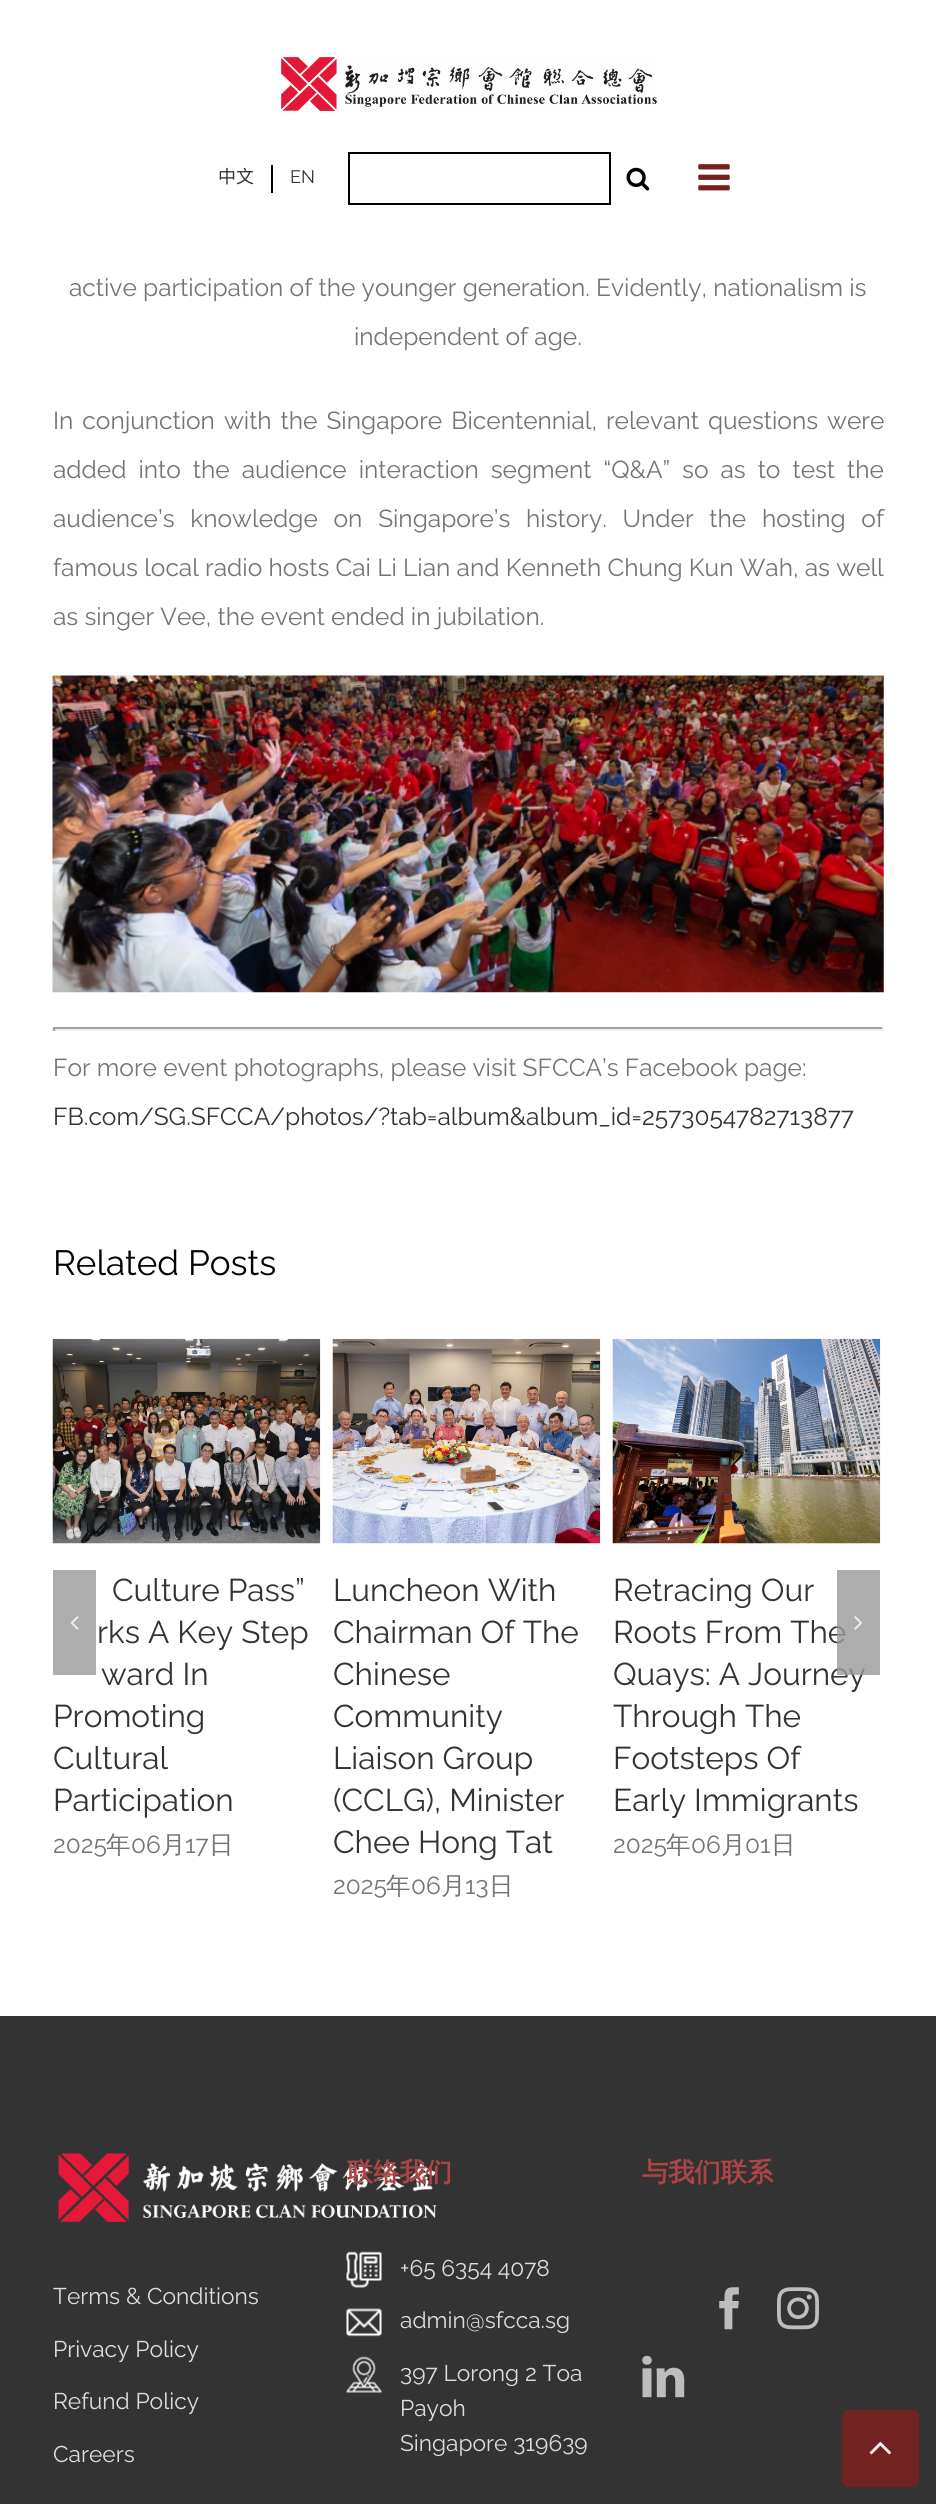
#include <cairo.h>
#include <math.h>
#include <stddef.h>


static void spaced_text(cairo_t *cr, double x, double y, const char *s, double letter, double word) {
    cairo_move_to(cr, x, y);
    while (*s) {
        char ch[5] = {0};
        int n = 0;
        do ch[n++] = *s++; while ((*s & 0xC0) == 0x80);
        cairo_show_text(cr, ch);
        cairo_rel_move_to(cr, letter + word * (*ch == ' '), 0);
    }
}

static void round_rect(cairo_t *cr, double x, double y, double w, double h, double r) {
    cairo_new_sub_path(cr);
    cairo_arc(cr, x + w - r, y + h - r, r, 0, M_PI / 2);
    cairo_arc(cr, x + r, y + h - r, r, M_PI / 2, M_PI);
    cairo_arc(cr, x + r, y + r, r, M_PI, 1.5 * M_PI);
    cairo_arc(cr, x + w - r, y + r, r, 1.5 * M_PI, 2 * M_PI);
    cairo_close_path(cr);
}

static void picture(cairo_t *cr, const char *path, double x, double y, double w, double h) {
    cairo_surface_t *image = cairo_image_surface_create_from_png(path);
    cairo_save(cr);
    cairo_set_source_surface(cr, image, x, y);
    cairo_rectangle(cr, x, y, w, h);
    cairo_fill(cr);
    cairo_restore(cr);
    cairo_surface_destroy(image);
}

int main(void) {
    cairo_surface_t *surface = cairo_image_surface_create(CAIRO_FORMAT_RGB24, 936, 2504);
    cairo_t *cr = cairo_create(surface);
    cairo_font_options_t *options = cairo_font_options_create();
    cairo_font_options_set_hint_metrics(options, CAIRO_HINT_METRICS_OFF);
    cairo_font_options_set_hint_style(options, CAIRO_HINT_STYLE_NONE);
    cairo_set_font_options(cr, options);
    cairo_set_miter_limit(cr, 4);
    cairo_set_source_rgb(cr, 1, 1, 1);
    cairo_paint(cr);
    picture(cr, "img1.png", 281, 57, 376, 55);
    cairo_set_source_rgb(cr, 0, 0, 0);
    cairo_rectangle(cr, 271, 165, 2, 28);
    cairo_fill(cr);
    cairo_select_font_face(cr, "Noto Sans CJK SC", CAIRO_FONT_SLANT_NORMAL, CAIRO_FONT_WEIGHT_NORMAL);
    cairo_set_font_size(cr, 18);
    cairo_set_source_rgb(cr, 0.2, 0.2, 0.2);
    cairo_move_to(cr, 218, 183);
    cairo_show_text(cr, "中文");
    cairo_select_font_face(cr, "Raleway", CAIRO_FONT_SLANT_NORMAL, CAIRO_FONT_WEIGHT_NORMAL);
    cairo_move_to(cr, 290, 183);
    cairo_show_text(cr, "EN");
    cairo_rectangle(cr, 349, 153, 261, 51);
    cairo_set_source_rgb(cr, 0, 0, 0);
    cairo_stroke(cr);
    picture(cr, "img2.png", 626, 167, 24, 24);
    picture(cr, "img3.png", 698, 164, 32, 27);
    cairo_set_font_size(cr, 24.5);
    cairo_set_source_rgb(cr, 0.455, 0.455, 0.455);
    cairo_move_to(cr, 69, 296);
    cairo_show_text(cr, "active participation of the younger generation. Evidently, nationalism is");
    cairo_move_to(cr, 354, 345);
    cairo_show_text(cr, "independent of age.");
    spaced_text(cr, 53, 429, "In conjunction with the Singapore Bicentennial, relevant questions were", 0, 2.75);
    spaced_text(cr, 53, 478, "added into the audience interaction segment “Q&A” so as to test the", 0, 5.75);
    spaced_text(cr, 53, 527, "audience’s knowledge on Singapore’s history. Under the hosting of", 0, 9.5);
    cairo_move_to(cr, 53, 576);
    cairo_show_text(cr, "famous local radio hosts Cai Li Lian and Kenneth Chung Kun Wah, as well");
    cairo_move_to(cr, 53, 625);
    cairo_show_text(cr, "as singer Vee, the event ended in jubilation.");
    picture(cr, "img4.png", 52, 675, 832, 318);
    cairo_set_source_rgb(cr, 0.624, 0.624, 0.624);
    cairo_rectangle(cr, 53, 1027, 831, 2);
    cairo_fill(cr);
    cairo_set_source_rgb(cr, 0.933, 0.933, 0.933);
    cairo_rectangle(cr, 882, 1027, 2, 4);
    cairo_fill(cr);
    cairo_rectangle(cr, 53, 1029, 831, 2);
    cairo_fill(cr);
    cairo_set_source_rgb(cr, 0.624, 0.624, 0.624);
    cairo_rectangle(cr, 53, 1027, 2, 4);
    cairo_fill(cr);
    cairo_set_source_rgb(cr, 0.455, 0.455, 0.455);
    cairo_move_to(cr, 53, 1076);
    cairo_show_text(cr, "For more event photographs, please visit SFCCA’s Facebook page:");
    cairo_set_source_rgb(cr, 0.2, 0.2, 0.2);
    cairo_move_to(cr, 53, 1125);
    cairo_show_text(cr, "FB.com/SG.SFCCA/photos/?tab=album&album_id=2573054782713877");
    cairo_set_font_size(cr, 35);
    cairo_set_source_rgb(cr, 0, 0, 0);
    cairo_move_to(cr, 53, 1275);
    cairo_show_text(cr, "Related Posts");
    cairo_set_source_rgba(cr, 0.6, 0.6, 0.6, 0.8);
    cairo_rectangle(cr, 53, 1570, 43, 105);
    cairo_fill(cr);
    picture(cr, "img5.png", 70, 1616, 9, 14);
    cairo_set_font_size(cr, 31.5);
    cairo_set_source_rgb(cr, 0.2, 0.2, 0.2);
    cairo_move_to(cr, 613, 1643);
    cairo_show_text(cr, "Roots From The");
    cairo_move_to(cr, 613, 1685);
    cairo_show_text(cr, "Quays: A Journey");
    cairo_set_source_rgba(cr, 0.6, 0.6, 0.6, 0.8);
    cairo_rectangle(cr, 837, 1570, 43, 105);
    cairo_fill(cr);
    picture(cr, "img6.png", 854, 1616, 8, 14);
    picture(cr, "img7.png", 52, 1338, 269, 206);
    cairo_set_source_rgb(cr, 0.2, 0.2, 0.2);
    cairo_move_to(cr, 112, 1601);
    cairo_show_text(cr, "Culture Pass”");
    cairo_move_to(cr, 97, 1643);
    cairo_show_text(cr, "rks A Key Step");
    cairo_move_to(cr, 101, 1685);
    cairo_show_text(cr, "ward In");
    cairo_move_to(cr, 53, 1727);
    cairo_show_text(cr, "Promoting");
    cairo_move_to(cr, 53, 1769);
    cairo_show_text(cr, "Cultural");
    cairo_move_to(cr, 53, 1811);
    cairo_show_text(cr, "Participation");
    cairo_set_font_size(cr, 24.5);
    cairo_set_source_rgb(cr, 0.455, 0.455, 0.455);
    cairo_move_to(cr, 53, 1853);
    cairo_show_text(cr, "2025");
    cairo_select_font_face(cr, "WenQuanYi Zen Hei Medium", CAIRO_FONT_SLANT_NORMAL, CAIRO_FONT_WEIGHT_NORMAL);
    cairo_move_to(cr, 106, 1853);
    cairo_show_text(cr, "年");
    cairo_select_font_face(cr, "Raleway", CAIRO_FONT_SLANT_NORMAL, CAIRO_FONT_WEIGHT_NORMAL);
    cairo_move_to(cr, 131, 1853);
    cairo_show_text(cr, "06");
    cairo_select_font_face(cr, "WenQuanYi Zen Hei Medium", CAIRO_FONT_SLANT_NORMAL, CAIRO_FONT_WEIGHT_NORMAL);
    cairo_move_to(cr, 161, 1853);
    cairo_show_text(cr, "月");
    cairo_select_font_face(cr, "Raleway", CAIRO_FONT_SLANT_NORMAL, CAIRO_FONT_WEIGHT_NORMAL);
    cairo_move_to(cr, 185, 1853);
    cairo_show_text(cr, "17");
    cairo_select_font_face(cr, "WenQuanYi Zen Hei Medium", CAIRO_FONT_SLANT_NORMAL, CAIRO_FONT_WEIGHT_NORMAL);
    cairo_move_to(cr, 209, 1853);
    cairo_show_text(cr, "日");
    picture(cr, "img8.png", 332, 1338, 269, 206);
    cairo_select_font_face(cr, "Raleway", CAIRO_FONT_SLANT_NORMAL, CAIRO_FONT_WEIGHT_NORMAL);
    cairo_set_font_size(cr, 31.5);
    cairo_set_source_rgb(cr, 0.2, 0.2, 0.2);
    cairo_move_to(cr, 333, 1601);
    cairo_show_text(cr, "Luncheon With");
    cairo_move_to(cr, 333, 1643);
    cairo_show_text(cr, "Chairman Of The");
    cairo_move_to(cr, 333, 1685);
    cairo_show_text(cr, "Chinese");
    cairo_move_to(cr, 333, 1727);
    cairo_show_text(cr, "Community");
    cairo_move_to(cr, 333, 1769);
    cairo_show_text(cr, "Liaison Group");
    cairo_move_to(cr, 333, 1811);
    cairo_show_text(cr, "(CCLG), Minister");
    cairo_move_to(cr, 333, 1853);
    cairo_show_text(cr, "Chee Hong Tat");
    cairo_set_font_size(cr, 24.5);
    cairo_set_source_rgb(cr, 0.455, 0.455, 0.455);
    cairo_move_to(cr, 333, 1894);
    cairo_show_text(cr, "2025");
    cairo_select_font_face(cr, "WenQuanYi Zen Hei Medium", CAIRO_FONT_SLANT_NORMAL, CAIRO_FONT_WEIGHT_NORMAL);
    cairo_move_to(cr, 386, 1894);
    cairo_show_text(cr, "年");
    cairo_select_font_face(cr, "Raleway", CAIRO_FONT_SLANT_NORMAL, CAIRO_FONT_WEIGHT_NORMAL);
    cairo_move_to(cr, 411, 1894);
    cairo_show_text(cr, "06");
    cairo_select_font_face(cr, "WenQuanYi Zen Hei Medium", CAIRO_FONT_SLANT_NORMAL, CAIRO_FONT_WEIGHT_NORMAL);
    cairo_move_to(cr, 441, 1894);
    cairo_show_text(cr, "月");
    cairo_select_font_face(cr, "Raleway", CAIRO_FONT_SLANT_NORMAL, CAIRO_FONT_WEIGHT_NORMAL);
    cairo_move_to(cr, 465, 1894);
    cairo_show_text(cr, "13");
    cairo_select_font_face(cr, "WenQuanYi Zen Hei Medium", CAIRO_FONT_SLANT_NORMAL, CAIRO_FONT_WEIGHT_NORMAL);
    cairo_move_to(cr, 489, 1894);
    cairo_show_text(cr, "日");
    picture(cr, "img9.png", 612, 1338, 269, 206);
    cairo_select_font_face(cr, "Raleway", CAIRO_FONT_SLANT_NORMAL, CAIRO_FONT_WEIGHT_NORMAL);
    cairo_set_font_size(cr, 31.5);
    cairo_set_source_rgb(cr, 0.2, 0.2, 0.2);
    cairo_move_to(cr, 613, 1601);
    cairo_show_text(cr, "Retracing Our");
    cairo_move_to(cr, 613, 1727);
    cairo_show_text(cr, "Through The");
    cairo_move_to(cr, 613, 1769);
    cairo_show_text(cr, "Footsteps Of");
    cairo_move_to(cr, 613, 1811);
    cairo_show_text(cr, "Early Immigrants");
    cairo_set_font_size(cr, 24.5);
    cairo_set_source_rgb(cr, 0.455, 0.455, 0.455);
    cairo_move_to(cr, 613, 1853);
    cairo_show_text(cr, "2025");
    cairo_select_font_face(cr, "WenQuanYi Zen Hei Medium", CAIRO_FONT_SLANT_NORMAL, CAIRO_FONT_WEIGHT_NORMAL);
    cairo_move_to(cr, 666, 1853);
    cairo_show_text(cr, "年");
    cairo_select_font_face(cr, "Raleway", CAIRO_FONT_SLANT_NORMAL, CAIRO_FONT_WEIGHT_NORMAL);
    cairo_move_to(cr, 691, 1853);
    cairo_show_text(cr, "06");
    cairo_select_font_face(cr, "WenQuanYi Zen Hei Medium", CAIRO_FONT_SLANT_NORMAL, CAIRO_FONT_WEIGHT_NORMAL);
    cairo_move_to(cr, 721, 1853);
    cairo_show_text(cr, "月");
    cairo_select_font_face(cr, "Raleway", CAIRO_FONT_SLANT_NORMAL, CAIRO_FONT_WEIGHT_NORMAL);
    cairo_move_to(cr, 745, 1853);
    cairo_show_text(cr, "01");
    cairo_select_font_face(cr, "WenQuanYi Zen Hei Medium", CAIRO_FONT_SLANT_NORMAL, CAIRO_FONT_WEIGHT_NORMAL);
    cairo_move_to(cr, 771, 1853);
    cairo_show_text(cr, "日");
    cairo_set_source_rgb(cr, 0.2, 0.2, 0.2);
    cairo_rectangle(cr, 0, 2016, 936, 488);
    cairo_fill(cr);
    picture(cr, "img16.png", 58, 2153, 380, 69);
    cairo_select_font_face(cr, "WenQuanYi Zen Hei", CAIRO_FONT_SLANT_NORMAL, CAIRO_FONT_WEIGHT_BOLD);
    cairo_set_font_size(cr, 26.25);
    cairo_set_source_rgb(cr, 0.678, 0.271, 0.267);
    cairo_move_to(cr, 347, 2181);
    cairo_show_text(cr, "联络我们");
    picture(cr, "img10.png", 346, 2251, 36, 37);
    cairo_select_font_face(cr, "Raleway", CAIRO_FONT_SLANT_NORMAL, CAIRO_FONT_WEIGHT_NORMAL);
    cairo_set_font_size(cr, 22.75);
    cairo_set_source_rgb(cr, 0.867, 0.867, 0.867);
    cairo_move_to(cr, 400, 2276);
    cairo_show_text(cr, "+65 6354 4078");
    picture(cr, "img11.png", 346, 2308, 36, 29);
    cairo_move_to(cr, 400, 2328);
    cairo_show_text(cr, "admin@sfcca.sg");
    picture(cr, "img12.png", 346, 2356, 36, 37);
    cairo_move_to(cr, 400, 2381);
    cairo_show_text(cr, "397 Lorong 2 Toa");
    cairo_move_to(cr, 400, 2416);
    cairo_show_text(cr, "Payoh");
    cairo_move_to(cr, 400, 2451);
    cairo_show_text(cr, "Singapore 319639");
    cairo_select_font_face(cr, "WenQuanYi Zen Hei", CAIRO_FONT_SLANT_NORMAL, CAIRO_FONT_WEIGHT_BOLD);
    cairo_set_font_size(cr, 26.25);
    cairo_set_source_rgb(cr, 0.678, 0.271, 0.267);
    cairo_move_to(cr, 642, 2181);
    cairo_show_text(cr, "与我们联系");
    picture(cr, "img13.png", 719, 2287, 20, 43);
    picture(cr, "img14.png", 777, 2287, 42, 43);
    picture(cr, "img15.png", 642, 2355, 43, 43);
    cairo_select_font_face(cr, "Raleway", CAIRO_FONT_SLANT_NORMAL, CAIRO_FONT_WEIGHT_NORMAL);
    cairo_set_font_size(cr, 22.75);
    cairo_set_source_rgb(cr, 0.867, 0.867, 0.867);
    cairo_move_to(cr, 53, 2304);
    cairo_show_text(cr, "Terms & Conditions");
    cairo_move_to(cr, 53, 2357);
    cairo_show_text(cr, "Privacy Policy");
    cairo_move_to(cr, 53, 2409);
    cairo_show_text(cr, "Refund Policy");
    cairo_move_to(cr, 53, 2462);
    cairo_show_text(cr, "Careers");
    cairo_set_source_rgb(cr, 0.443, 0.133, 0.129);
    round_rect(cr, 842, 2410, 77, 77, 7);
    cairo_fill(cr);
    picture(cr, "img17.png", 869, 2441, 22, 14);
    cairo_surface_write_to_png(surface, "page.png");
    cairo_font_options_destroy(options);
    cairo_destroy(cr);
    cairo_surface_destroy(surface);
    return 0;
}
